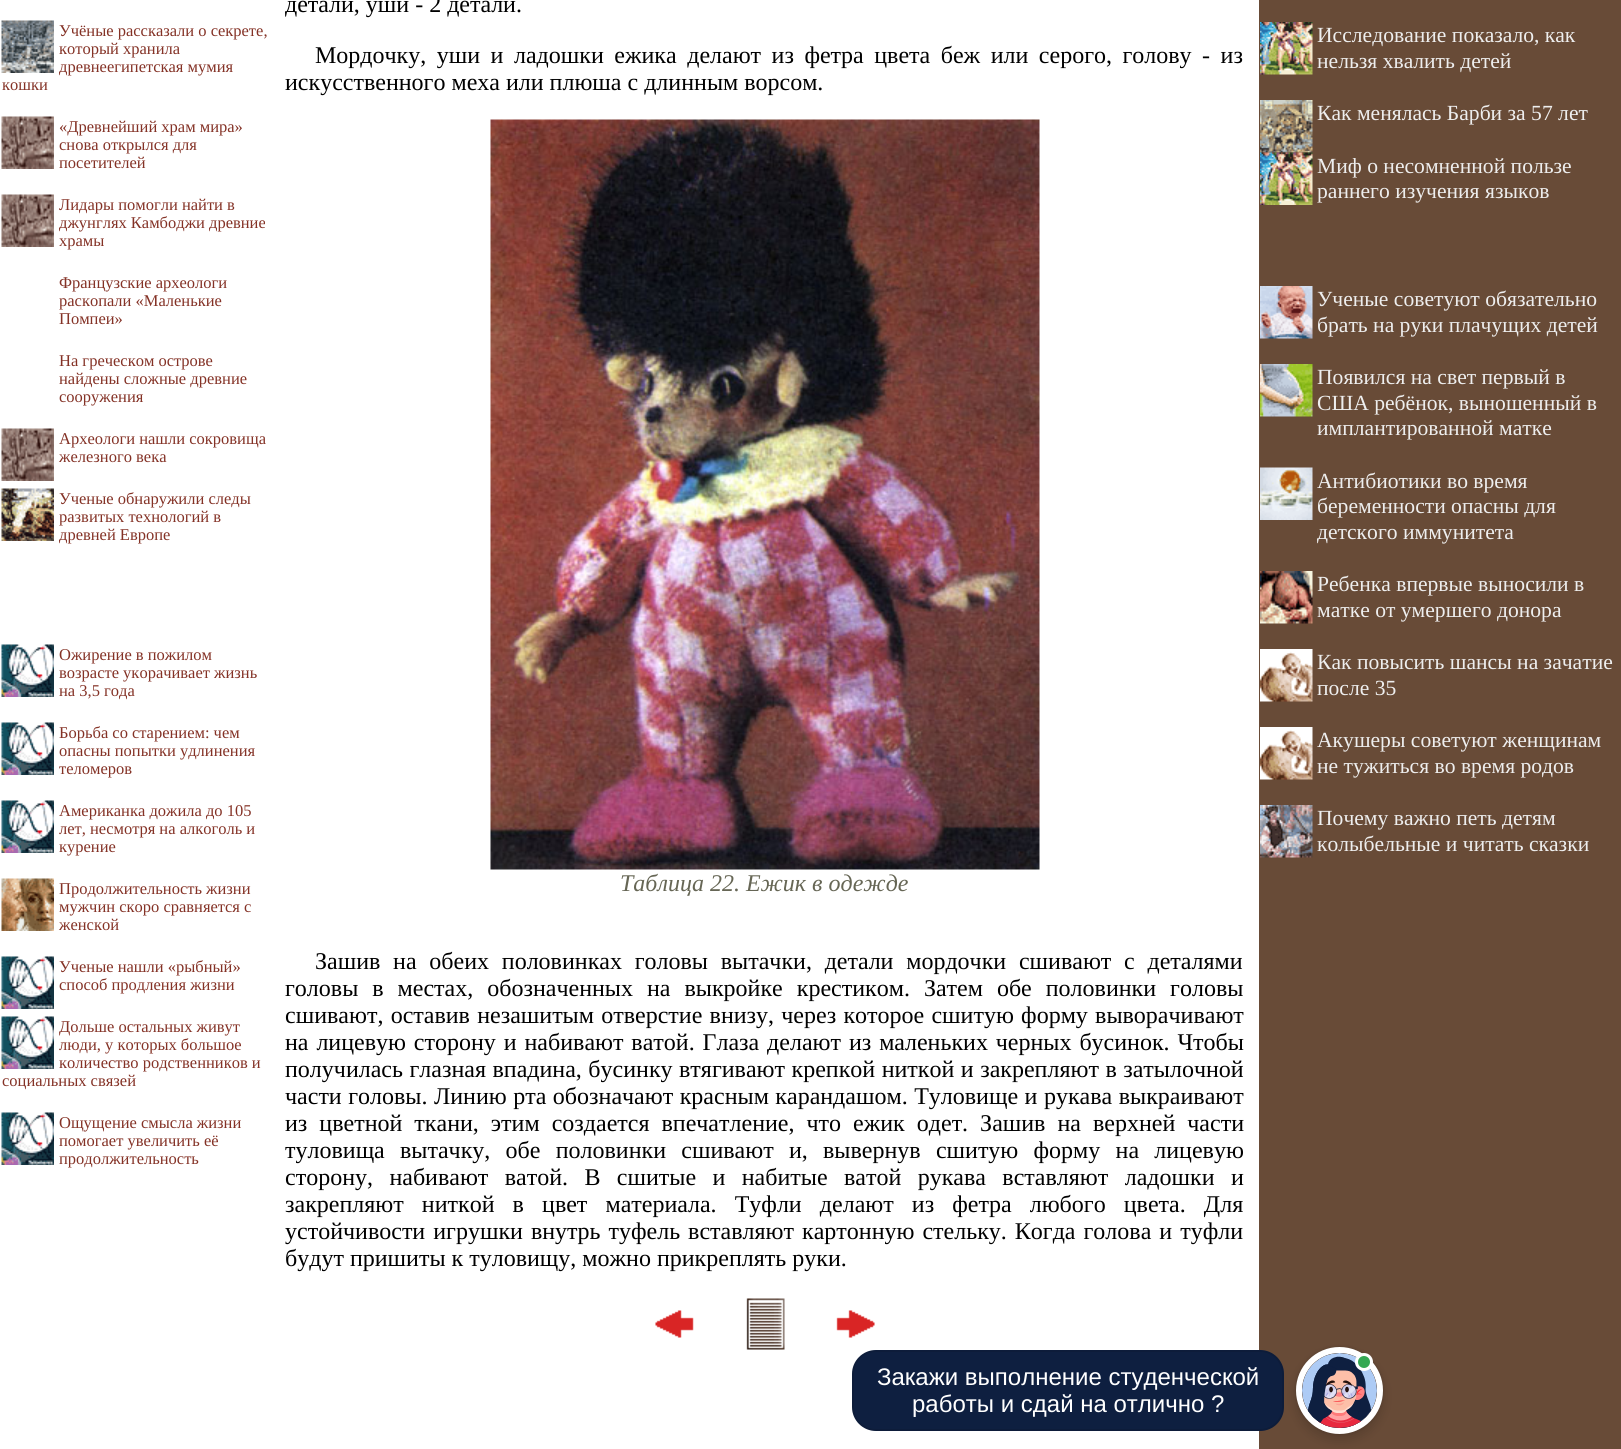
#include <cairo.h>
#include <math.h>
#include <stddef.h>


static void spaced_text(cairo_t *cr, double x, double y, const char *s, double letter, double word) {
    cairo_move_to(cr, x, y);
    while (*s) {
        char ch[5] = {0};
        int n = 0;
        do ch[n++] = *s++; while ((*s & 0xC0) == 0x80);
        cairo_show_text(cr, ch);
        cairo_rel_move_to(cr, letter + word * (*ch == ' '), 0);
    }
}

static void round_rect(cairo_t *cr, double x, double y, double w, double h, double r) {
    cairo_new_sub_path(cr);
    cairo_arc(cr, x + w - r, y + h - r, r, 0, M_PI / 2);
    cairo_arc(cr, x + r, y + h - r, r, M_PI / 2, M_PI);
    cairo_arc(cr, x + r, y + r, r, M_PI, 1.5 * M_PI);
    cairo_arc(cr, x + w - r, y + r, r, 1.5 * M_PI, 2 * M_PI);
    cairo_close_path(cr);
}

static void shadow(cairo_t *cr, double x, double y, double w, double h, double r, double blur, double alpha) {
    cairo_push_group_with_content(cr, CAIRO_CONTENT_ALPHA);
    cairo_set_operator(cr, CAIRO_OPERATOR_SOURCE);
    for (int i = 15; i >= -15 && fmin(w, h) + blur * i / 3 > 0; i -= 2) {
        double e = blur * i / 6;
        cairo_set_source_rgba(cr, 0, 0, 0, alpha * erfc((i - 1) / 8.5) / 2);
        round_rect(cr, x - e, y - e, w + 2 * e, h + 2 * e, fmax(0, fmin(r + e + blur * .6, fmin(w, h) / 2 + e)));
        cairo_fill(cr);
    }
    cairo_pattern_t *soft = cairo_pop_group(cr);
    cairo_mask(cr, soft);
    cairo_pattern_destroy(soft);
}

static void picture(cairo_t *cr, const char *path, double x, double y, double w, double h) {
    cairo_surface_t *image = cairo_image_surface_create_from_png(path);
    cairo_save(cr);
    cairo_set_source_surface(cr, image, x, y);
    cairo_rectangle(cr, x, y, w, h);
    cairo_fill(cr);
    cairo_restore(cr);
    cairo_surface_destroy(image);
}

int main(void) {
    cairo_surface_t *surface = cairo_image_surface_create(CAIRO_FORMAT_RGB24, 1621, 1449);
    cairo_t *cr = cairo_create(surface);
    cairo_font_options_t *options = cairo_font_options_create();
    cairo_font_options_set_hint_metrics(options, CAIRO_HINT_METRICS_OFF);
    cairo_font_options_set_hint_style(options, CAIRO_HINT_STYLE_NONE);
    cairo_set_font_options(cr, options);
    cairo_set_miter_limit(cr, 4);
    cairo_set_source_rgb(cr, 1, 1, 1);
    cairo_paint(cr);
    picture(cr, "img1.png", 1, 20, 53, 53);
    cairo_select_font_face(cr, "Liberation Serif", CAIRO_FONT_SLANT_NORMAL, CAIRO_FONT_WEIGHT_NORMAL);
    cairo_set_font_size(cr, 16.5);
    cairo_set_source_rgb(cr, 0.518, 0.196, 0.149);
    cairo_move_to(cr, 59, 36);
    cairo_show_text(cr, "Учёные рассказали о секрете,");
    cairo_move_to(cr, 59, 54);
    cairo_show_text(cr, "который хранила");
    cairo_move_to(cr, 59, 72);
    cairo_show_text(cr, "древнеегипетская мумия");
    cairo_move_to(cr, 2, 90);
    cairo_show_text(cr, "кошки");
    picture(cr, "img2.png", 1, 116, 53, 53);
    cairo_move_to(cr, 59, 132);
    cairo_show_text(cr, "«Древнейший храм мира»");
    cairo_move_to(cr, 59, 150);
    cairo_show_text(cr, "снова открылся для");
    cairo_move_to(cr, 59, 168);
    cairo_show_text(cr, "посетителей");
    picture(cr, "img2.png", 1, 194, 53, 53);
    cairo_move_to(cr, 59, 210);
    cairo_show_text(cr, "Лидары помогли найти в");
    cairo_move_to(cr, 59, 228);
    cairo_show_text(cr, "джунглях Камбоджи древние");
    cairo_move_to(cr, 59, 246);
    cairo_show_text(cr, "храмы");
    cairo_move_to(cr, 59, 288);
    cairo_show_text(cr, "Французские археологи");
    cairo_move_to(cr, 59, 306);
    cairo_show_text(cr, "раскопали «Маленькие");
    cairo_move_to(cr, 59, 324);
    cairo_show_text(cr, "Помпеи»");
    cairo_move_to(cr, 59, 366);
    cairo_show_text(cr, "На греческом острове");
    cairo_move_to(cr, 59, 384);
    cairo_show_text(cr, "найдены сложные древние");
    cairo_move_to(cr, 59, 402);
    cairo_show_text(cr, "сооружения");
    picture(cr, "img2.png", 1, 428, 53, 53);
    cairo_move_to(cr, 59, 444);
    cairo_show_text(cr, "Археологи нашли сокровища");
    cairo_move_to(cr, 59, 462);
    cairo_show_text(cr, "железного века");
    picture(cr, "img3.png", 1, 488, 53, 53);
    cairo_move_to(cr, 59, 504);
    cairo_show_text(cr, "Ученые обнаружили следы");
    cairo_move_to(cr, 59, 522);
    cairo_show_text(cr, "развитых технологий в");
    cairo_move_to(cr, 59, 540);
    cairo_show_text(cr, "древней Европе");
    picture(cr, "img4.png", 1, 644, 53, 53);
    cairo_move_to(cr, 59, 660);
    cairo_show_text(cr, "Ожирение в пожилом");
    cairo_move_to(cr, 59, 678);
    cairo_show_text(cr, "возрасте укорачивает жизнь");
    cairo_move_to(cr, 59, 696);
    cairo_show_text(cr, "на 3,5 года");
    picture(cr, "img4.png", 1, 722, 53, 53);
    cairo_move_to(cr, 59, 738);
    cairo_show_text(cr, "Борьба со старением: чем");
    cairo_move_to(cr, 59, 756);
    cairo_show_text(cr, "опасны попытки удлинения");
    cairo_move_to(cr, 59, 774);
    cairo_show_text(cr, "теломеров");
    picture(cr, "img4.png", 1, 800, 53, 53);
    cairo_move_to(cr, 59, 816);
    cairo_show_text(cr, "Американка дожила до 105");
    cairo_move_to(cr, 59, 834);
    cairo_show_text(cr, "лет, несмотря на алкоголь и");
    cairo_move_to(cr, 59, 852);
    cairo_show_text(cr, "курение");
    picture(cr, "img5.png", 1, 878, 53, 53);
    cairo_move_to(cr, 59, 894);
    cairo_show_text(cr, "Продолжительность жизни");
    cairo_move_to(cr, 59, 912);
    cairo_show_text(cr, "мужчин скоро сравняется с");
    cairo_move_to(cr, 59, 930);
    cairo_show_text(cr, "женской");
    picture(cr, "img4.png", 1, 956, 53, 53);
    cairo_move_to(cr, 59, 972);
    cairo_show_text(cr, "Ученые нашли «рыбный»");
    cairo_move_to(cr, 59, 990);
    cairo_show_text(cr, "способ продления жизни");
    picture(cr, "img4.png", 1, 1016, 53, 53);
    cairo_move_to(cr, 59, 1032);
    cairo_show_text(cr, "Дольше остальных живут");
    cairo_move_to(cr, 59, 1050);
    cairo_show_text(cr, "люди, у которых большое");
    cairo_move_to(cr, 59, 1068);
    cairo_show_text(cr, "количество родственников и");
    cairo_move_to(cr, 2, 1086);
    cairo_show_text(cr, "социальных связей");
    picture(cr, "img4.png", 1, 1112, 53, 53);
    cairo_move_to(cr, 59, 1128);
    cairo_show_text(cr, "Ощущение смысла жизни");
    cairo_move_to(cr, 59, 1146);
    cairo_show_text(cr, "помогает увеличить её");
    cairo_move_to(cr, 59, 1164);
    cairo_show_text(cr, "продолжительность");
    cairo_set_font_size(cr, 24);
    cairo_set_source_rgb(cr, 0, 0, 0);
    cairo_move_to(cr, 285, 12);
    cairo_show_text(cr, "детали, уши - 2 детали.");
    spaced_text(cr, 315, 63, "Мордочку, уши и ладошки ежика делают из фетра цвета беж или серого, голову - из", 0, 4.5);
    cairo_move_to(cr, 285, 90);
    cairo_show_text(cr, "искусственного меха или плюша с длинным ворсом.");
    picture(cr, "img6.png", 490, 119, 550, 751);
    cairo_select_font_face(cr, "Liberation Serif", CAIRO_FONT_SLANT_ITALIC, CAIRO_FONT_WEIGHT_NORMAL);
    cairo_set_source_rgb(cr, 0.4, 0.4, 0.333);
    cairo_move_to(cr, 620, 891);
    cairo_show_text(cr, "Таблица 22. Ежик в одежде");
    cairo_select_font_face(cr, "Liberation Serif", CAIRO_FONT_SLANT_NORMAL, CAIRO_FONT_WEIGHT_NORMAL);
    cairo_set_source_rgb(cr, 0, 0, 0);
    spaced_text(cr, 315, 969, "Зашив на обеих половинках головы вытачки, детали мордочки сшивают с деталями", 0, 6.75);
    spaced_text(cr, 285, 996, "головы в местах, обозначенных на выкройке крестиком. Затем обе половинки головы", 0, 8);
    spaced_text(cr, 285, 1023, "сшивают, оставив незашитым отверстие внизу, через которое сшитую форму выворачивают", 0, 1.25);
    spaced_text(cr, 285, 1050, "на лицевую сторону и набивают ватой. Глаза делают из маленьких черных бусинок. Чтобы", 0, 1.9);
    spaced_text(cr, 285, 1077, "получилась глазная впадина, бусинку втягивают крепкой ниткой и закрепляют в затылочной", 0, 0.5);
    spaced_text(cr, 285, 1104, "части головы. Линию рта обозначают красным карандашом. Туловище и рукава выкраивают", 0, 0.5);
    spaced_text(cr, 285, 1131, "из цветной ткани, этим создается впечатление, что ежик одет. Зашив на верхней части", 0, 6);
    spaced_text(cr, 285, 1158, "туловища вытачку, обе половинки сшивают и, вывернув сшитую форму на лицевую", 0, 9.25);
    spaced_text(cr, 285, 1185, "сторону, набивают ватой. В сшитые и набитые ватой рукава вставляют ладошки и", 0, 10.4);
    spaced_text(cr, 285, 1212, "закрепляют ниткой в цвет материала. Туфли делают из фетра любого цвета. Для", 0, 12.1);
    spaced_text(cr, 285, 1239, "устойчивости игрушки внутрь туфель вставляют картонную стельку. Когда голова и туфли", 0, 2);
    cairo_move_to(cr, 285, 1266);
    cairo_show_text(cr, "будут пришиты к туловищу, можно прикреплять руки.");
    picture(cr, "img7.png", 655, 1310, 39, 28);
    picture(cr, "img8.png", 746, 1298, 39, 52);
    picture(cr, "img9.png", 836, 1310, 39, 28);
    cairo_set_source_rgb(cr, 0.408, 0.294, 0.216);
    cairo_rectangle(cr, 1259, 0, 362, 1449);
    cairo_fill(cr);
    picture(cr, "img10.png", 1260, 22, 53, 53);
    cairo_set_font_size(cr, 21.6);
    cairo_set_source_rgb(cr, 0.933, 0.933, 0.933);
    cairo_move_to(cr, 1317, 42);
    cairo_show_text(cr, "Исследование показало, как");
    cairo_move_to(cr, 1317, 68);
    cairo_show_text(cr, "нельзя хвалить детей");
    picture(cr, "img11.png", 1260, 100, 53, 53);
    cairo_move_to(cr, 1317, 120);
    cairo_show_text(cr, "Как менялась Барби за 57 лет");
    picture(cr, "img12.png", 1260, 152, 53, 53);
    cairo_move_to(cr, 1317, 173);
    cairo_show_text(cr, "Миф о несомненной пользе");
    cairo_move_to(cr, 1317, 198);
    cairo_show_text(cr, "раннего изучения языков");
    picture(cr, "img13.png", 1260, 286, 53, 53);
    cairo_move_to(cr, 1317, 306);
    cairo_show_text(cr, "Ученые советуют обязательно");
    cairo_move_to(cr, 1317, 332);
    cairo_show_text(cr, "брать на руки плачущих детей");
    picture(cr, "img14.png", 1260, 364, 53, 53);
    cairo_move_to(cr, 1317, 384);
    cairo_show_text(cr, "Появился на свет первый в");
    cairo_move_to(cr, 1317, 410);
    cairo_show_text(cr, "США ребёнок, выношенный в");
    cairo_move_to(cr, 1317, 435);
    cairo_show_text(cr, "имплантированной матке");
    picture(cr, "img15.png", 1260, 467, 53, 53);
    cairo_move_to(cr, 1317, 488);
    cairo_show_text(cr, "Антибиотики во время");
    cairo_move_to(cr, 1317, 513);
    cairo_show_text(cr, "беременности опасны для");
    cairo_move_to(cr, 1317, 539);
    cairo_show_text(cr, "детского иммунитета");
    picture(cr, "img16.png", 1260, 571, 53, 53);
    cairo_move_to(cr, 1317, 591);
    cairo_show_text(cr, "Ребенка впервые выносили в");
    cairo_move_to(cr, 1317, 617);
    cairo_show_text(cr, "матке от умершего донора");
    picture(cr, "img17.png", 1260, 649, 53, 53);
    cairo_move_to(cr, 1317, 669);
    cairo_show_text(cr, "Как повысить шансы на зачатие");
    cairo_move_to(cr, 1317, 695);
    cairo_show_text(cr, "после 35");
    picture(cr, "img17.png", 1260, 727, 53, 53);
    cairo_move_to(cr, 1317, 747);
    cairo_show_text(cr, "Акушеры советуют женщинам");
    cairo_move_to(cr, 1317, 773);
    cairo_show_text(cr, "не тужиться во время родов");
    picture(cr, "img18.png", 1260, 805, 53, 53);
    cairo_move_to(cr, 1317, 825);
    cairo_show_text(cr, "Почему важно петь детям");
    cairo_move_to(cr, 1317, 851);
    cairo_show_text(cr, "колыбельные и читать сказки");
    cairo_set_source_rgb(cr, 0, 0, 0);
    shadow(cr, 1296, 1353, 87, 87, 43.5, 6, 0.16);
    cairo_set_source_rgb(cr, 0.055, 0.122, 0.251);
    round_rect(cr, 852, 1350, 432, 81, 24);
    cairo_fill(cr);
    round_rect(cr, 853, 1351, 430, 79, 23);
    cairo_set_source_rgba(cr, 0, 0, 0, 0.1);
    cairo_stroke(cr);
    cairo_select_font_face(cr, "Liberation Sans", CAIRO_FONT_SLANT_NORMAL, CAIRO_FONT_WEIGHT_NORMAL);
    cairo_set_font_size(cr, 24);
    cairo_set_source_rgb(cr, 1, 1, 1);
    cairo_move_to(cr, 877, 1385);
    cairo_show_text(cr, "Закажи выполнение студенческой");
    cairo_move_to(cr, 912, 1412);
    cairo_show_text(cr, "работы и сдай на отлично ?");
    cairo_set_source_rgb(cr, 0, 0, 0);
    shadow(cr, 1296, 1347, 87, 87, 43.5, 1.5, 0.16);
    cairo_arc(cr, 1339.5, 1390.5, 40.5, 0, 2 * M_PI);
    cairo_set_source_rgb(cr, 1, 1, 1);
    cairo_set_line_width(cr, 6);
    cairo_stroke(cr);
    picture(cr, "img19.png", 1302, 1353, 75, 75);
    cairo_set_source_rgb(cr, 0.204, 0.659, 0.325);
    cairo_arc(cr, 1364, 1362, 7.5, 0, 2 * M_PI);
    cairo_fill_preserve(cr);
    cairo_set_source_rgb(cr, 1, 1, 1);
    cairo_set_line_width(cr, 3);
    cairo_stroke(cr);
    cairo_surface_write_to_png(surface, "page.png");
    cairo_font_options_destroy(options);
    cairo_destroy(cr);
    cairo_surface_destroy(surface);
    return 0;
}
